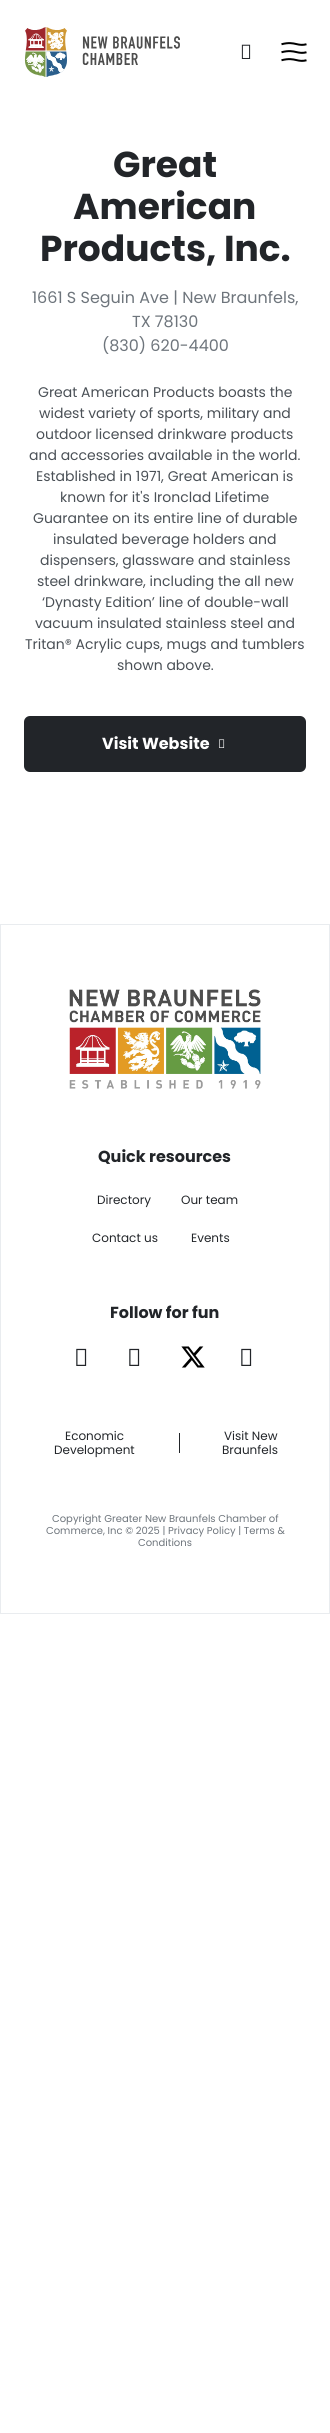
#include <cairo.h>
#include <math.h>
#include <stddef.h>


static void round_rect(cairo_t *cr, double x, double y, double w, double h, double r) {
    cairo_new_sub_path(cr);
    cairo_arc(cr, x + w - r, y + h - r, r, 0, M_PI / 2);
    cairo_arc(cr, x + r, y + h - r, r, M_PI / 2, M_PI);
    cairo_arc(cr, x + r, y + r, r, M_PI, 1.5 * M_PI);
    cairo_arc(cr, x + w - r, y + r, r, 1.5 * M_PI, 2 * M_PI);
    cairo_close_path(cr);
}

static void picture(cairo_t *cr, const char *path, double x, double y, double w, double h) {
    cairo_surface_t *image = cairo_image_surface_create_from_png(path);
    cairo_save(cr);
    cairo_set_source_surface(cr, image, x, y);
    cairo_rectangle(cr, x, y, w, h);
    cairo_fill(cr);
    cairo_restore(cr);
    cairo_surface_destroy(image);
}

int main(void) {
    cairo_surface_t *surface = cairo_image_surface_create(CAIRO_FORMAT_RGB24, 330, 2433);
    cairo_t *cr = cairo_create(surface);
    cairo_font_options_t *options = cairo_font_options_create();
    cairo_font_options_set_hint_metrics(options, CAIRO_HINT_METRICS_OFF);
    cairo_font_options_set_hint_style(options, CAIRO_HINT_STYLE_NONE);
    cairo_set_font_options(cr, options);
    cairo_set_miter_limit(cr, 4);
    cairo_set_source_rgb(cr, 1, 1, 1);
    cairo_paint(cr);
    picture(cr, "img1.png", 24, 27, 156, 50);
    picture(cr, "img2.png", 241, 44, 10, 15);
    picture(cr, "img3.png", 281, 42, 26, 20);
    cairo_select_font_face(cr, "Poppins", CAIRO_FONT_SLANT_NORMAL, CAIRO_FONT_WEIGHT_BOLD);
    cairo_set_font_size(cr, 36);
    cairo_set_source_rgb(cr, 0.133, 0.145, 0.161);
    cairo_move_to(cr, 113, 177);
    cairo_show_text(cr, "Great");
    cairo_move_to(cr, 73, 219);
    cairo_show_text(cr, "American");
    cairo_move_to(cr, 40, 261);
    cairo_show_text(cr, "Products, Inc.");
    cairo_select_font_face(cr, "Poppins", CAIRO_FONT_SLANT_NORMAL, CAIRO_FONT_WEIGHT_NORMAL);
    cairo_set_font_size(cr, 16);
    cairo_set_source_rgb(cr, 0.431, 0.459, 0.486);
    cairo_move_to(cr, 32, 303);
    cairo_show_text(cr, "1661 S Seguin Ave | New Braunfels,");
    cairo_move_to(cr, 132, 327);
    cairo_show_text(cr, "TX 78130");
    cairo_move_to(cr, 102, 351);
    cairo_show_text(cr, "(830) 620-4400");
    cairo_set_font_size(cr, 14);
    cairo_set_source_rgb(cr, 0.29, 0.314, 0.337);
    cairo_move_to(cr, 38, 397);
    cairo_show_text(cr, "Great American Products boasts the");
    cairo_move_to(cr, 39, 418);
    cairo_show_text(cr, "widest variety of sports, military and");
    cairo_move_to(cr, 36, 439);
    cairo_show_text(cr, "outdoor licensed drinkware products");
    cairo_move_to(cr, 29, 460);
    cairo_show_text(cr, "and accessories available in the world.");
    cairo_move_to(cr, 36, 481);
    cairo_show_text(cr, "Established in 1971, Great American is");
    cairo_move_to(cr, 60, 502);
    cairo_show_text(cr, "known for it's Ironclad Lifetime");
    cairo_move_to(cr, 33, 523);
    cairo_show_text(cr, "Guarantee on its entire line of durable");
    cairo_move_to(cr, 53, 544);
    cairo_show_text(cr, "insulated beverage holders and");
    cairo_move_to(cr, 40, 565);
    cairo_show_text(cr, "dispensers, glassware and stainless");
    cairo_move_to(cr, 37, 586);
    cairo_show_text(cr, "steel drinkware, including the all new");
    cairo_move_to(cr, 42, 607);
    cairo_show_text(cr, "‘Dynasty Edition’ line of double-wall");
    cairo_move_to(cr, 35, 628);
    cairo_show_text(cr, "vacuum insulated stainless steel and");
    cairo_move_to(cr, 25, 649);
    cairo_show_text(cr, "Tritan® Acrylic cups, mugs and tumblers");
    cairo_move_to(cr, 117, 670);
    cairo_show_text(cr, "shown above.");
    cairo_set_source_rgb(cr, 0.133, 0.145, 0.161);
    round_rect(cr, 24, 716, 282, 56, 6);
    cairo_fill(cr);
    cairo_select_font_face(cr, "Poppins", CAIRO_FONT_SLANT_NORMAL, CAIRO_FONT_WEIGHT_BOLD);
    cairo_set_font_size(cr, 16);
    cairo_set_source_rgb(cr, 1, 1, 1);
    cairo_move_to(cr, 102, 749);
    cairo_show_text(cr, "Visit Website");
    picture(cr, "img4.png", 219, 739, 6, 9);
    cairo_rectangle(cr, 0.5, 924.5, 329, 689);
    cairo_set_source_rgb(cr, 0.914, 0.925, 0.937);
    cairo_set_line_width(cr, 1);
    cairo_stroke(cr);
    picture(cr, "img5.png", 69, 989, 192, 100);
    cairo_set_source_rgb(cr, 0.133, 0.145, 0.161);
    cairo_move_to(cr, 98, 1162);
    cairo_show_text(cr, "Quick resources");
    cairo_select_font_face(cr, "Poppins", CAIRO_FONT_SLANT_NORMAL, CAIRO_FONT_WEIGHT_NORMAL);
    cairo_set_font_size(cr, 12);
    cairo_move_to(cr, 97, 1204);
    cairo_show_text(cr, "Directory");
    cairo_move_to(cr, 181, 1204);
    cairo_show_text(cr, "Our team");
    cairo_move_to(cr, 92, 1242);
    cairo_show_text(cr, "Contact us");
    cairo_move_to(cr, 191, 1242);
    cairo_show_text(cr, "Events");
    cairo_select_font_face(cr, "Poppins", CAIRO_FONT_SLANT_NORMAL, CAIRO_FONT_WEIGHT_BOLD);
    cairo_set_font_size(cr, 16);
    cairo_move_to(cr, 110, 1318);
    cairo_show_text(cr, "Follow for fun");
    picture(cr, "img6.png", 76, 1348, 11, 18);
    picture(cr, "img6.png", 129, 1348, 11, 18);
    picture(cr, "img7.png", 181, 1346, 24, 22);
    picture(cr, "img6.png", 241, 1348, 11, 18);
    cairo_select_font_face(cr, "Poppins", CAIRO_FONT_SLANT_NORMAL, CAIRO_FONT_WEIGHT_NORMAL);
    cairo_set_font_size(cr, 12);
    cairo_move_to(cr, 65, 1440);
    cairo_show_text(cr, "Economic");
    cairo_rectangle(cr, 179, 1433, 1, 20);
    cairo_fill(cr);
    cairo_move_to(cr, 54, 1454);
    cairo_show_text(cr, "Development");
    cairo_move_to(cr, 224, 1440);
    cairo_show_text(cr, "Visit New");
    cairo_move_to(cr, 222, 1454);
    cairo_show_text(cr, "Braunfels");
    cairo_set_font_size(cr, 10);
    cairo_set_source_rgb(cr, 0.431, 0.459, 0.486);
    cairo_move_to(cr, 52, 1522);
    cairo_show_text(cr, "Copyright Greater New Braunfels Chamber of");
    cairo_move_to(cr, 46, 1534);
    cairo_show_text(cr, "Commerce, Inc © 2025 | Privacy Policy | Terms &");
    cairo_move_to(cr, 138, 1546);
    cairo_show_text(cr, "Conditions");
    cairo_surface_write_to_png(surface, "page.png");
    cairo_font_options_destroy(options);
    cairo_destroy(cr);
    cairo_surface_destroy(surface);
    return 0;
}
